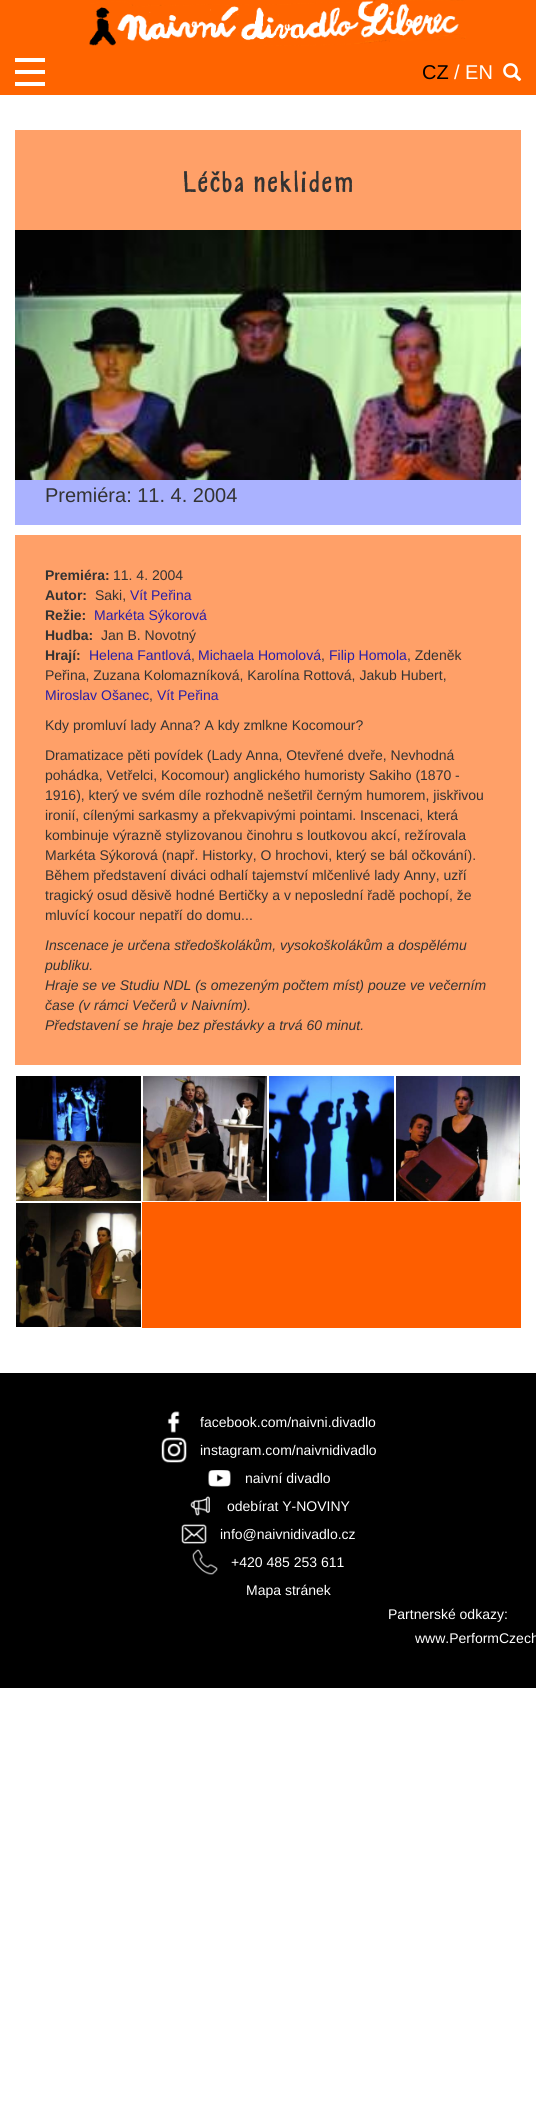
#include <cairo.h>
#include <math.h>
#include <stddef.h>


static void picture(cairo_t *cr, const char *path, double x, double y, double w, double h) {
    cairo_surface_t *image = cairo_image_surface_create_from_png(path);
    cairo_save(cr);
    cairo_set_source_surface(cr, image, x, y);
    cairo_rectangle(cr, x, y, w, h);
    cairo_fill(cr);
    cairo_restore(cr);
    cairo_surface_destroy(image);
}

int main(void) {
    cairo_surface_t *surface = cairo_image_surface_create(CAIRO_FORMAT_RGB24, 536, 2128);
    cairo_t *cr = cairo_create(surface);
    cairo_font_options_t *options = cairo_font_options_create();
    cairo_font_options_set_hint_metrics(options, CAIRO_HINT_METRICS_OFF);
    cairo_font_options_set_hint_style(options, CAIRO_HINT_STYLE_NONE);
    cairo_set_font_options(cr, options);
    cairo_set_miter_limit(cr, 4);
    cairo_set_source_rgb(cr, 1, 1, 1);
    cairo_paint(cr);
    cairo_set_source_rgb(cr, 1, 0.392, 0);
    cairo_rectangle(cr, 0, 0, 536, 95);
    cairo_fill(cr);
    picture(cr, "img1.png", 89, 0, 377, 46);
    cairo_set_source_rgb(cr, 1, 1, 1);
    cairo_rectangle(cr, 15, 58, 30, 4);
    cairo_fill(cr);
    cairo_rectangle(cr, 15, 70, 30, 4);
    cairo_fill(cr);
    cairo_rectangle(cr, 15, 82, 30, 4);
    cairo_fill(cr);
    cairo_select_font_face(cr, "Liberation Sans", CAIRO_FONT_SLANT_NORMAL, CAIRO_FONT_WEIGHT_NORMAL);
    cairo_set_font_size(cr, 20);
    cairo_set_source_rgb(cr, 0, 0, 0);
    cairo_move_to(cr, 422, 79);
    cairo_show_text(cr, "CZ");
    cairo_set_source_rgb(cr, 1, 1, 1);
    cairo_move_to(cr, 454, 79);
    cairo_show_text(cr, "/ EN");
    picture(cr, "img2.png", 503, 63, 19, 19);
    cairo_set_source_rgb(cr, 0.667, 0.698, 1);
    cairo_rectangle(cr, 15, 480, 506, 45);
    cairo_fill(cr);
    cairo_set_source_rgb(cr, 1, 0.627, 0.408);
    cairo_rectangle(cr, 15, 130, 506, 100);
    cairo_fill(cr);
    cairo_select_font_face(cr, "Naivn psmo", CAIRO_FONT_SLANT_NORMAL, CAIRO_FONT_WEIGHT_NORMAL);
    cairo_set_font_size(cr, 30);
    cairo_set_source_rgb(cr, 0.2, 0.2, 0.2);
    cairo_move_to(cr, 183, 192);
    cairo_show_text(cr, "Léčba neklidem");
    picture(cr, "img3.png", 15, 230, 506, 250);
    cairo_select_font_face(cr, "Liberation Sans", CAIRO_FONT_SLANT_NORMAL, CAIRO_FONT_WEIGHT_NORMAL);
    cairo_set_font_size(cr, 20);
    cairo_move_to(cr, 45, 502);
    cairo_show_text(cr, "Premiéra: 11. 4. 2004");
    cairo_set_source_rgb(cr, 1, 0.627, 0.408);
    cairo_rectangle(cr, 15, 535, 506, 530);
    cairo_fill(cr);
    cairo_select_font_face(cr, "Liberation Sans", CAIRO_FONT_SLANT_NORMAL, CAIRO_FONT_WEIGHT_BOLD);
    cairo_set_font_size(cr, 14);
    cairo_set_source_rgb(cr, 0.2, 0.2, 0.2);
    cairo_move_to(cr, 45, 580);
    cairo_show_text(cr, "Premiéra:");
    cairo_select_font_face(cr, "Liberation Sans", CAIRO_FONT_SLANT_NORMAL, CAIRO_FONT_WEIGHT_NORMAL);
    cairo_move_to(cr, 113, 580);
    cairo_show_text(cr, "11. 4. 2004");
    cairo_select_font_face(cr, "Liberation Sans", CAIRO_FONT_SLANT_NORMAL, CAIRO_FONT_WEIGHT_BOLD);
    cairo_move_to(cr, 45, 600);
    cairo_show_text(cr, "Autor:");
    cairo_select_font_face(cr, "Liberation Sans", CAIRO_FONT_SLANT_NORMAL, CAIRO_FONT_WEIGHT_NORMAL);
    cairo_move_to(cr, 95, 600);
    cairo_show_text(cr, "Saki,");
    cairo_set_source_rgb(cr, 0.157, 0.118, 0.663);
    cairo_move_to(cr, 130, 600);
    cairo_show_text(cr, "Vít Peřina");
    cairo_select_font_face(cr, "Liberation Sans", CAIRO_FONT_SLANT_NORMAL, CAIRO_FONT_WEIGHT_BOLD);
    cairo_set_source_rgb(cr, 0.2, 0.2, 0.2);
    cairo_move_to(cr, 45, 620);
    cairo_show_text(cr, "Režie:");
    cairo_select_font_face(cr, "Liberation Sans", CAIRO_FONT_SLANT_NORMAL, CAIRO_FONT_WEIGHT_NORMAL);
    cairo_set_source_rgb(cr, 0.157, 0.118, 0.663);
    cairo_move_to(cr, 94, 620);
    cairo_show_text(cr, "Markéta Sýkorová");
    cairo_select_font_face(cr, "Liberation Sans", CAIRO_FONT_SLANT_NORMAL, CAIRO_FONT_WEIGHT_BOLD);
    cairo_set_source_rgb(cr, 0.2, 0.2, 0.2);
    cairo_move_to(cr, 45, 640);
    cairo_show_text(cr, "Hudba:");
    cairo_select_font_face(cr, "Liberation Sans", CAIRO_FONT_SLANT_NORMAL, CAIRO_FONT_WEIGHT_NORMAL);
    cairo_move_to(cr, 101, 640);
    cairo_show_text(cr, "Jan B. Novotný");
    cairo_select_font_face(cr, "Liberation Sans", CAIRO_FONT_SLANT_NORMAL, CAIRO_FONT_WEIGHT_BOLD);
    cairo_move_to(cr, 45, 660);
    cairo_show_text(cr, "Hrají:");
    cairo_select_font_face(cr, "Liberation Sans", CAIRO_FONT_SLANT_NORMAL, CAIRO_FONT_WEIGHT_NORMAL);
    cairo_set_source_rgb(cr, 0.157, 0.118, 0.663);
    cairo_move_to(cr, 89, 660);
    cairo_show_text(cr, "Helena Fantlová");
    cairo_set_source_rgb(cr, 0.2, 0.2, 0.2);
    cairo_move_to(cr, 191, 660);
    cairo_show_text(cr, ",");
    cairo_set_source_rgb(cr, 0.157, 0.118, 0.663);
    cairo_move_to(cr, 198, 660);
    cairo_show_text(cr, "Michaela Homolová");
    cairo_set_source_rgb(cr, 0.2, 0.2, 0.2);
    cairo_move_to(cr, 321, 660);
    cairo_show_text(cr, ",");
    cairo_set_source_rgb(cr, 0.157, 0.118, 0.663);
    cairo_move_to(cr, 329, 660);
    cairo_show_text(cr, "Filip Homola");
    cairo_set_source_rgb(cr, 0.2, 0.2, 0.2);
    cairo_move_to(cr, 407, 660);
    cairo_show_text(cr, ", Zdeněk");
    cairo_move_to(cr, 45, 680);
    cairo_show_text(cr, "Peřina, Zuzana Kolomazníková, Karolína Rottová, Jakub Hubert,");
    cairo_set_source_rgb(cr, 0.157, 0.118, 0.663);
    cairo_move_to(cr, 45, 700);
    cairo_show_text(cr, "Miroslav Ošanec");
    cairo_set_source_rgb(cr, 0.2, 0.2, 0.2);
    cairo_move_to(cr, 149, 700);
    cairo_show_text(cr, ",");
    cairo_set_source_rgb(cr, 0.157, 0.118, 0.663);
    cairo_move_to(cr, 157, 700);
    cairo_show_text(cr, "Vít Peřina");
    cairo_set_source_rgb(cr, 0.2, 0.2, 0.2);
    cairo_move_to(cr, 45, 730);
    cairo_show_text(cr, "Kdy promluví lady Anna? A kdy zmlkne Kocomour?");
    cairo_move_to(cr, 45, 760);
    cairo_show_text(cr, "Dramatizace pěti povídek (Lady Anna, Otevřené dveře, Nevhodná");
    cairo_move_to(cr, 45, 780);
    cairo_show_text(cr, "pohádka, Vetřelci, Kocomour) anglického humoristy Sakiho (1870 -");
    cairo_move_to(cr, 45, 800);
    cairo_show_text(cr, "1916), který ve svém díle rozhodně nešetřil černým humorem, jiskřivou");
    cairo_move_to(cr, 45, 820);
    cairo_show_text(cr, "ironií, cílenými sarkasmy a překvapivými pointami. Inscenaci, která");
    cairo_move_to(cr, 45, 840);
    cairo_show_text(cr, "kombinuje výrazně stylizovanou činohru s loutkovou akcí, režírovala");
    cairo_move_to(cr, 45, 860);
    cairo_show_text(cr, "Markéta Sýkorová (např. Historky, O hrochovi, který se bál očkování).");
    cairo_move_to(cr, 45, 880);
    cairo_show_text(cr, "Během představení diváci odhalí tajemství mlčenlivé lady Anny, uzří");
    cairo_move_to(cr, 45, 900);
    cairo_show_text(cr, "tragický osud děsivě hodné Bertičky a v neposlední řadě pochopí, že");
    cairo_move_to(cr, 45, 920);
    cairo_show_text(cr, "mluvící kocour nepatří do domu...");
    cairo_select_font_face(cr, "Liberation Sans", CAIRO_FONT_SLANT_ITALIC, CAIRO_FONT_WEIGHT_NORMAL);
    cairo_move_to(cr, 45, 950);
    cairo_show_text(cr, "Inscenace je určena středoškolákům, vysokoškolákům a dospělému");
    cairo_move_to(cr, 45, 970);
    cairo_show_text(cr, "publiku.");
    cairo_move_to(cr, 45, 990);
    cairo_show_text(cr, "Hraje se ve Studiu NDL (s omezeným počtem míst) pouze ve večerním");
    cairo_move_to(cr, 45, 1010);
    cairo_show_text(cr, "čase (v rámci Večerů v Naivním).");
    cairo_move_to(cr, 45, 1030);
    cairo_show_text(cr, "Představení se hraje bez přestávky a trvá 60 minut.");
    cairo_set_source_rgb(cr, 0.996, 0.369, 0);
    cairo_rectangle(cr, 142, 1202, 379, 126);
    cairo_fill(cr);
    picture(cr, "img4.png", 16, 1076, 125, 125);
    picture(cr, "img5.png", 143, 1076, 124, 125);
    picture(cr, "img6.png", 269, 1076, 125, 125);
    picture(cr, "img7.png", 396, 1076, 124, 125);
    picture(cr, "img8.png", 16, 1203, 125, 124);
    cairo_set_source_rgb(cr, 0, 0, 0);
    cairo_rectangle(cr, 0, 1373, 536, 315);
    cairo_fill(cr);
    picture(cr, "img9.png", 167, 1411, 13, 22);
    cairo_select_font_face(cr, "Liberation Sans", CAIRO_FONT_SLANT_NORMAL, CAIRO_FONT_WEIGHT_NORMAL);
    cairo_set_source_rgb(cr, 1, 1, 1);
    cairo_move_to(cr, 200, 1427);
    cairo_show_text(cr, "facebook.com/naivni.divadlo");
    picture(cr, "img10.png", 161, 1437, 26, 26);
    cairo_move_to(cr, 200, 1455);
    cairo_show_text(cr, "instagram.com/naivnidivadlo");
    picture(cr, "img11.png", 208, 1470, 23, 17);
    cairo_move_to(cr, 245, 1483);
    cairo_show_text(cr, "naivní divadlo");
    picture(cr, "img12.png", 190, 1496, 20, 20);
    cairo_move_to(cr, 227, 1511);
    cairo_show_text(cr, "odebírat Y-NOVINY");
    picture(cr, "img13.png", 181, 1524, 26, 20);
    cairo_move_to(cr, 220, 1539);
    cairo_show_text(cr, "info@naivnidivadlo.cz");
    picture(cr, "img14.png", 192, 1549, 26, 26);
    cairo_move_to(cr, 231, 1567);
    cairo_show_text(cr, "+420 485 253 611");
    cairo_move_to(cr, 246, 1595);
    cairo_show_text(cr, "Mapa stránek");
    cairo_move_to(cr, 388, 1619);
    cairo_show_text(cr, "Partnerské odkazy:");
    cairo_move_to(cr, 415, 1643);
    cairo_show_text(cr, "www.PerformCzech");
    cairo_surface_write_to_png(surface, "page.png");
    cairo_font_options_destroy(options);
    cairo_destroy(cr);
    cairo_surface_destroy(surface);
    return 0;
}
